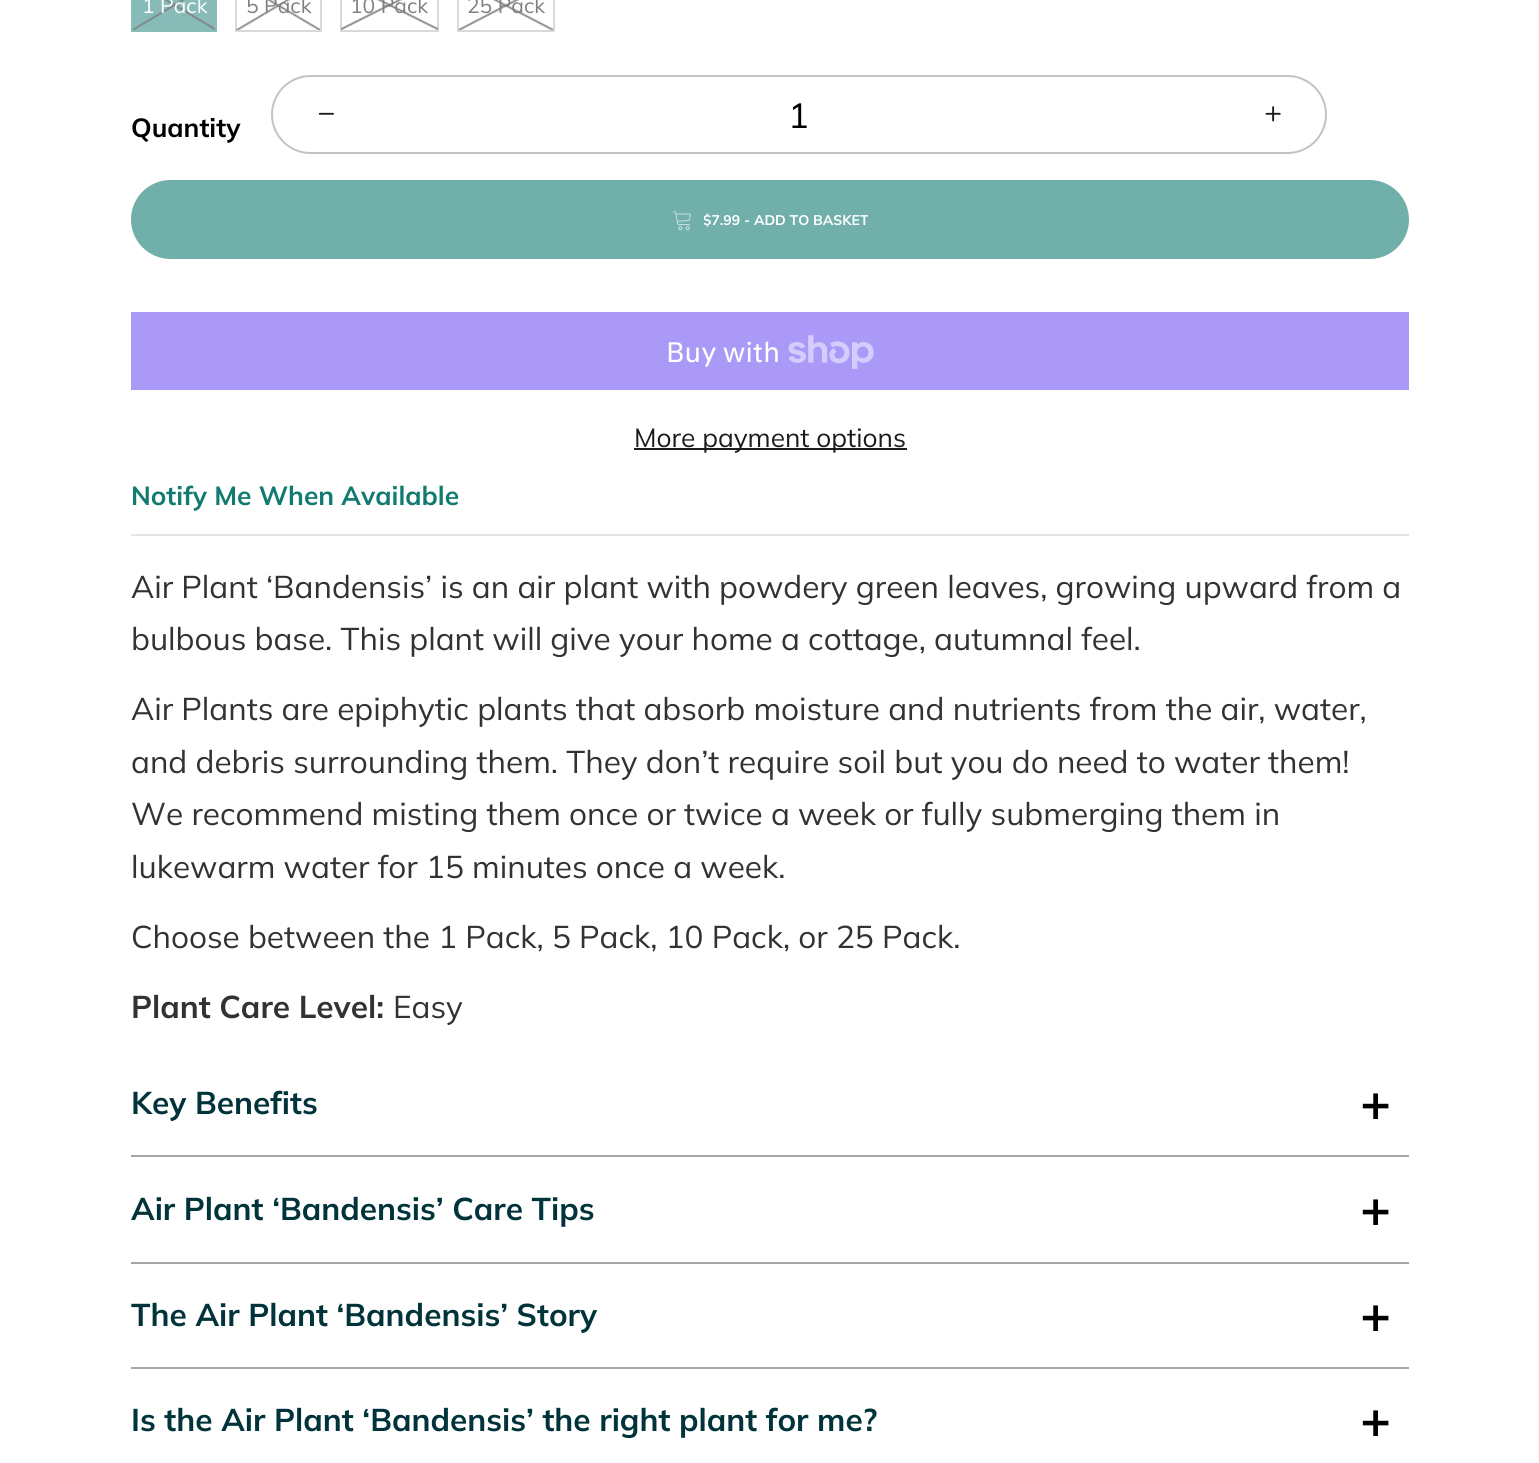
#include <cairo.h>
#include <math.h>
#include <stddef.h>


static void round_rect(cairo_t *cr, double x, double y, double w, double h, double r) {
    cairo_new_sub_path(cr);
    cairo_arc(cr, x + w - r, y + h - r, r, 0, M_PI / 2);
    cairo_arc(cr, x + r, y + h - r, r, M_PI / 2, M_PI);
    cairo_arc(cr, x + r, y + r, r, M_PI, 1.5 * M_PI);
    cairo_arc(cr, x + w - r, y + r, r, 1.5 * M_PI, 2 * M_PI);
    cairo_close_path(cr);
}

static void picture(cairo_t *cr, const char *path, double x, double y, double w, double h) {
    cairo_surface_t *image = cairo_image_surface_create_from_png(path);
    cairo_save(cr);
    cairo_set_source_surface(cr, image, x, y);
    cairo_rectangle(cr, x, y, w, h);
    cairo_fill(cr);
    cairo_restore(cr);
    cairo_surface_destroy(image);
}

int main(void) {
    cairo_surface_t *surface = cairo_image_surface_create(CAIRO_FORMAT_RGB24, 1539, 1463);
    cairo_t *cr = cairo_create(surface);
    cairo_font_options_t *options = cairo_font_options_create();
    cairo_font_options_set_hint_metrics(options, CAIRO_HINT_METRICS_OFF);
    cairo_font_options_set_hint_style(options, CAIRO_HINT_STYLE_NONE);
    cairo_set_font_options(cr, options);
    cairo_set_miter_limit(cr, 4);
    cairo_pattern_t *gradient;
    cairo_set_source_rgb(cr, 1, 1, 1);
    cairo_paint(cr);
    cairo_set_source_rgb(cr, 0.525, 0.733, 0.718);
    cairo_rectangle(cr, 132, -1, 84, 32);
    cairo_fill_preserve(cr);
    cairo_set_source_rgb(cr, 0.533, 0.741, 0.722);
    cairo_stroke(cr);
    gradient = cairo_pattern_create_linear(153, 41, 196, -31);
    cairo_pattern_add_color_stop_rgba(gradient, 0, 0.502, 0.502, 0.502, 0);
    cairo_pattern_add_color_stop_rgba(gradient, 0.48, 0.502, 0.502, 0.502, 0);
    cairo_pattern_add_color_stop_rgba(gradient, 0.5, 0.502, 0.502, 0.502, 1);
    cairo_pattern_add_color_stop_rgba(gradient, 0.52, 0.502, 0.502, 0.502, 0);
    cairo_pattern_add_color_stop_rgba(gradient, 1, 0.502, 0.502, 0.502, 0);
    cairo_set_source(cr, gradient);
    cairo_pattern_destroy(gradient);
    cairo_rectangle(cr, 164, 0, 51, 30);
    cairo_fill(cr);
    gradient = cairo_pattern_create_linear(196, 41, 153, -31);
    cairo_pattern_add_color_stop_rgba(gradient, 0, 0.502, 0.502, 0.502, 0);
    cairo_pattern_add_color_stop_rgba(gradient, 0.48, 0.502, 0.502, 0.502, 0);
    cairo_pattern_add_color_stop_rgba(gradient, 0.5, 0.502, 0.502, 0.502, 1);
    cairo_pattern_add_color_stop_rgba(gradient, 0.52, 0.502, 0.502, 0.502, 0);
    cairo_pattern_add_color_stop_rgba(gradient, 1, 0.502, 0.502, 0.502, 0);
    cairo_set_source(cr, gradient);
    cairo_pattern_destroy(gradient);
    cairo_rectangle(cr, 133, 0, 52, 30);
    cairo_fill(cr);
    cairo_select_font_face(cr, "Muli", CAIRO_FONT_SLANT_NORMAL, CAIRO_FONT_WEIGHT_NORMAL);
    cairo_set_font_size(cr, 21);
    cairo_set_source_rgb(cr, 1, 1, 1);
    cairo_move_to(cr, 142, 13);
    cairo_show_text(cr, "1 Pack");
    cairo_rectangle(cr, 236, -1, 85, 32);
    cairo_set_source_rgb(cr, 0.851, 0.851, 0.851);
    cairo_stroke(cr);
    gradient = cairo_pattern_create_linear(257, 42, 300, -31);
    cairo_pattern_add_color_stop_rgba(gradient, 0, 0.502, 0.502, 0.502, 0);
    cairo_pattern_add_color_stop_rgba(gradient, 0.48, 0.502, 0.502, 0.502, 0);
    cairo_pattern_add_color_stop_rgba(gradient, 0.5, 0.502, 0.502, 0.502, 1);
    cairo_pattern_add_color_stop_rgba(gradient, 0.52, 0.502, 0.502, 0.502, 0);
    cairo_pattern_add_color_stop_rgba(gradient, 1, 0.502, 0.502, 0.502, 0);
    cairo_set_source(cr, gradient);
    cairo_pattern_destroy(gradient);
    cairo_rectangle(cr, 267, 0, 53, 30);
    cairo_fill(cr);
    gradient = cairo_pattern_create_linear(300, 42, 257, -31);
    cairo_pattern_add_color_stop_rgba(gradient, 0, 0.502, 0.502, 0.502, 0);
    cairo_pattern_add_color_stop_rgba(gradient, 0.48, 0.502, 0.502, 0.502, 0);
    cairo_pattern_add_color_stop_rgba(gradient, 0.5, 0.502, 0.502, 0.502, 1);
    cairo_pattern_add_color_stop_rgba(gradient, 0.52, 0.502, 0.502, 0.502, 0);
    cairo_pattern_add_color_stop_rgba(gradient, 1, 0.502, 0.502, 0.502, 0);
    cairo_set_source(cr, gradient);
    cairo_pattern_destroy(gradient);
    cairo_rectangle(cr, 236, 0, 54, 30);
    cairo_fill(cr);
    cairo_set_source_rgb(cr, 0.502, 0.502, 0.502);
    cairo_move_to(cr, 246, 13);
    cairo_show_text(cr, "5 Pack");
    cairo_rectangle(cr, 341, -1, 97, 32);
    cairo_set_source_rgb(cr, 0.851, 0.851, 0.851);
    cairo_stroke(cr);
    gradient = cairo_pattern_create_linear(370, 44, 409, -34);
    cairo_pattern_add_color_stop_rgba(gradient, 0, 0.502, 0.502, 0.502, 0);
    cairo_pattern_add_color_stop_rgba(gradient, 0.48, 0.502, 0.502, 0.502, 0);
    cairo_pattern_add_color_stop_rgba(gradient, 0.5, 0.502, 0.502, 0.502, 1);
    cairo_pattern_add_color_stop_rgba(gradient, 0.52, 0.502, 0.502, 0.502, 0);
    cairo_pattern_add_color_stop_rgba(gradient, 1, 0.502, 0.502, 0.502, 0);
    cairo_set_source(cr, gradient);
    cairo_pattern_destroy(gradient);
    cairo_rectangle(cr, 377, 0, 61, 30);
    cairo_fill(cr);
    gradient = cairo_pattern_create_linear(409, 44, 370, -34);
    cairo_pattern_add_color_stop_rgba(gradient, 0, 0.502, 0.502, 0.502, 0);
    cairo_pattern_add_color_stop_rgba(gradient, 0.48, 0.502, 0.502, 0.502, 0);
    cairo_pattern_add_color_stop_rgba(gradient, 0.5, 0.502, 0.502, 0.502, 1);
    cairo_pattern_add_color_stop_rgba(gradient, 0.52, 0.502, 0.502, 0.502, 0);
    cairo_pattern_add_color_stop_rgba(gradient, 1, 0.502, 0.502, 0.502, 0);
    cairo_set_source(cr, gradient);
    cairo_pattern_destroy(gradient);
    cairo_rectangle(cr, 341, 0, 61, 30);
    cairo_fill(cr);
    cairo_set_source_rgb(cr, 0.502, 0.502, 0.502);
    cairo_move_to(cr, 350, 13);
    cairo_show_text(cr, "10 Pack");
    cairo_rectangle(cr, 458, -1, 96, 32);
    cairo_set_source_rgb(cr, 0.851, 0.851, 0.851);
    cairo_stroke(cr);
    gradient = cairo_pattern_create_linear(486, 44, 526, -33);
    cairo_pattern_add_color_stop_rgba(gradient, 0, 0.502, 0.502, 0.502, 0);
    cairo_pattern_add_color_stop_rgba(gradient, 0.48, 0.502, 0.502, 0.502, 0);
    cairo_pattern_add_color_stop_rgba(gradient, 0.5, 0.502, 0.502, 0.502, 1);
    cairo_pattern_add_color_stop_rgba(gradient, 0.52, 0.502, 0.502, 0.502, 0);
    cairo_pattern_add_color_stop_rgba(gradient, 1, 0.502, 0.502, 0.502, 0);
    cairo_set_source(cr, gradient);
    cairo_pattern_destroy(gradient);
    cairo_rectangle(cr, 493, 0, 60, 30);
    cairo_fill(cr);
    gradient = cairo_pattern_create_linear(526, 44, 486, -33);
    cairo_pattern_add_color_stop_rgba(gradient, 0, 0.502, 0.502, 0.502, 0);
    cairo_pattern_add_color_stop_rgba(gradient, 0.48, 0.502, 0.502, 0.502, 0);
    cairo_pattern_add_color_stop_rgba(gradient, 0.5, 0.502, 0.502, 0.502, 1);
    cairo_pattern_add_color_stop_rgba(gradient, 0.52, 0.502, 0.502, 0.502, 0);
    cairo_pattern_add_color_stop_rgba(gradient, 1, 0.502, 0.502, 0.502, 0);
    cairo_set_source(cr, gradient);
    cairo_pattern_destroy(gradient);
    cairo_rectangle(cr, 459, 0, 60, 30);
    cairo_fill(cr);
    cairo_set_source_rgb(cr, 0.502, 0.502, 0.502);
    cairo_move_to(cr, 467, 13);
    cairo_show_text(cr, "25 Pack");
    round_rect(cr, 272, 76, 1054, 77, 38.5);
    cairo_set_source_rgb(cr, 0.765, 0.765, 0.765);
    cairo_stroke(cr);
    picture(cr, "img1.png", 318, 112, 16, 3);
    cairo_set_font_size(cr, 35);
    cairo_set_source_rgb(cr, 0, 0, 0);
    cairo_move_to(cr, 788, 128);
    cairo_show_text(cr, "1");
    picture(cr, "img2.png", 1265, 106, 16, 16);
    cairo_select_font_face(cr, "Muli", CAIRO_FONT_SLANT_NORMAL, CAIRO_FONT_WEIGHT_BOLD);
    cairo_set_font_size(cr, 26.25);
    cairo_move_to(cr, 131, 137);
    cairo_show_text(cr, "Quantity");
    cairo_set_source_rgb(cr, 0.439, 0.686, 0.667);
    round_rect(cr, 131, 180, 1278, 79, 39.5);
    cairo_fill(cr);
    picture(cr, "img3.png", 673, 211, 18, 20);
    cairo_save(cr);
    cairo_rectangle(cr, 704, 182, 164, 77);
    cairo_clip(cr);
    cairo_set_font_size(cr, 14);
    cairo_set_source_rgb(cr, 1, 1, 1);
    cairo_move_to(cr, 703, 225);
    cairo_show_text(cr, "$7.99 - ADD TO BASKET");
    cairo_restore(cr);
    cairo_set_source_rgb(cr, 0.667, 0.6, 0.961);
    cairo_rectangle(cr, 131, 312, 1278, 78);
    cairo_fill(cr);
    cairo_select_font_face(cr, "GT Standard", CAIRO_FONT_SLANT_NORMAL, CAIRO_FONT_WEIGHT_NORMAL);
    cairo_set_font_size(cr, 28);
    cairo_set_source_rgb(cr, 1, 1, 1);
    cairo_move_to(cr, 666, 362);
    cairo_show_text(cr, "Buy with");
    picture(cr, "img4.png", 788, 335, 86, 34);
    cairo_set_source_rgb(cr, 0.11, 0.11, 0.11);
    cairo_rectangle(cr, 634, 448, 273, 2);
    cairo_fill(cr);
    cairo_select_font_face(cr, "Muli", CAIRO_FONT_SLANT_NORMAL, CAIRO_FONT_WEIGHT_NORMAL);
    cairo_set_font_size(cr, 26.25);
    cairo_move_to(cr, 634, 447);
    cairo_show_text(cr, "More payment options");
    cairo_select_font_face(cr, "Muli", CAIRO_FONT_SLANT_NORMAL, CAIRO_FONT_WEIGHT_BOLD);
    cairo_set_source_rgb(cr, 0.067, 0.478, 0.443);
    cairo_move_to(cr, 131, 505);
    cairo_show_text(cr, "Notify Me When Available");
    cairo_set_source_rgb(cr, 0.898, 0.898, 0.898);
    cairo_rectangle(cr, 131, 534, 1278, 2);
    cairo_fill(cr);
    cairo_select_font_face(cr, "Muli", CAIRO_FONT_SLANT_NORMAL, CAIRO_FONT_WEIGHT_NORMAL);
    cairo_set_font_size(cr, 31.5);
    cairo_set_source_rgb(cr, 0.196, 0.196, 0.196);
    cairo_move_to(cr, 131, 598);
    cairo_show_text(cr, "Air Plant ‘Bandensis’ is an air plant with powdery green leaves, growing upward from a");
    cairo_move_to(cr, 131, 650);
    cairo_show_text(cr, "bulbous base. This plant will give your home a cottage, autumnal feel.");
    cairo_move_to(cr, 131, 720);
    cairo_show_text(cr, "Air Plants are epiphytic plants that absorb moisture and nutrients from the air, water,");
    cairo_move_to(cr, 131, 773);
    cairo_show_text(cr, "and debris surrounding them. They don’t require soil but you do need to water them!");
    cairo_move_to(cr, 131, 825);
    cairo_show_text(cr, "We recommend misting them once or twice a week or fully submerging them in");
    cairo_move_to(cr, 131, 878);
    cairo_show_text(cr, "lukewarm water for 15 minutes once a week.");
    cairo_move_to(cr, 131, 948);
    cairo_show_text(cr, "Choose between the 1 Pack, 5 Pack, 10 Pack, or 25 Pack.");
    cairo_select_font_face(cr, "Muli", CAIRO_FONT_SLANT_NORMAL, CAIRO_FONT_WEIGHT_BOLD);
    cairo_move_to(cr, 131, 1018);
    cairo_show_text(cr, "Plant Care Level:");
    cairo_select_font_face(cr, "Muli", CAIRO_FONT_SLANT_NORMAL, CAIRO_FONT_WEIGHT_NORMAL);
    cairo_move_to(cr, 393, 1018);
    cairo_show_text(cr, "Easy");
    cairo_set_source_rgb(cr, 0.651, 0.651, 0.651);
    cairo_rectangle(cr, 131, 1155, 1278, 2);
    cairo_fill(cr);
    cairo_select_font_face(cr, "Muli", CAIRO_FONT_SLANT_NORMAL, CAIRO_FONT_WEIGHT_BOLD);
    cairo_set_source_rgb(cr, 0.004, 0.2, 0.231);
    cairo_move_to(cr, 131, 1114);
    cairo_show_text(cr, "Key Benefits");
    cairo_set_font_size(cr, 52);
    cairo_set_source_rgb(cr, 0, 0, 0);
    cairo_move_to(cr, 1360, 1121);
    cairo_show_text(cr, "+");
    cairo_set_source_rgb(cr, 0.651, 0.651, 0.651);
    cairo_rectangle(cr, 131, 1262, 1278, 2);
    cairo_fill(cr);
    cairo_set_font_size(cr, 31.5);
    cairo_set_source_rgb(cr, 0.004, 0.2, 0.231);
    cairo_move_to(cr, 131, 1220);
    cairo_show_text(cr, "Air Plant ‘Bandensis’ Care Tips");
    cairo_set_font_size(cr, 52);
    cairo_set_source_rgb(cr, 0, 0, 0);
    cairo_move_to(cr, 1360, 1227);
    cairo_show_text(cr, "+");
    cairo_set_source_rgb(cr, 0.651, 0.651, 0.651);
    cairo_rectangle(cr, 131, 1367, 1278, 2);
    cairo_fill(cr);
    cairo_set_font_size(cr, 31.5);
    cairo_set_source_rgb(cr, 0.004, 0.2, 0.231);
    cairo_move_to(cr, 131, 1326);
    cairo_show_text(cr, "The Air Plant ‘Bandensis’ Story");
    cairo_set_font_size(cr, 52);
    cairo_set_source_rgb(cr, 0, 0, 0);
    cairo_move_to(cr, 1360, 1333);
    cairo_show_text(cr, "+");
    cairo_set_font_size(cr, 31.5);
    cairo_set_source_rgb(cr, 0.004, 0.2, 0.231);
    cairo_move_to(cr, 131, 1431);
    cairo_show_text(cr, "Is the Air Plant ‘Bandensis’ the right plant for me?");
    cairo_set_font_size(cr, 52);
    cairo_set_source_rgb(cr, 0, 0, 0);
    cairo_move_to(cr, 1360, 1438);
    cairo_show_text(cr, "+");
    cairo_surface_write_to_png(surface, "page.png");
    cairo_font_options_destroy(options);
    cairo_destroy(cr);
    cairo_surface_destroy(surface);
    return 0;
}
